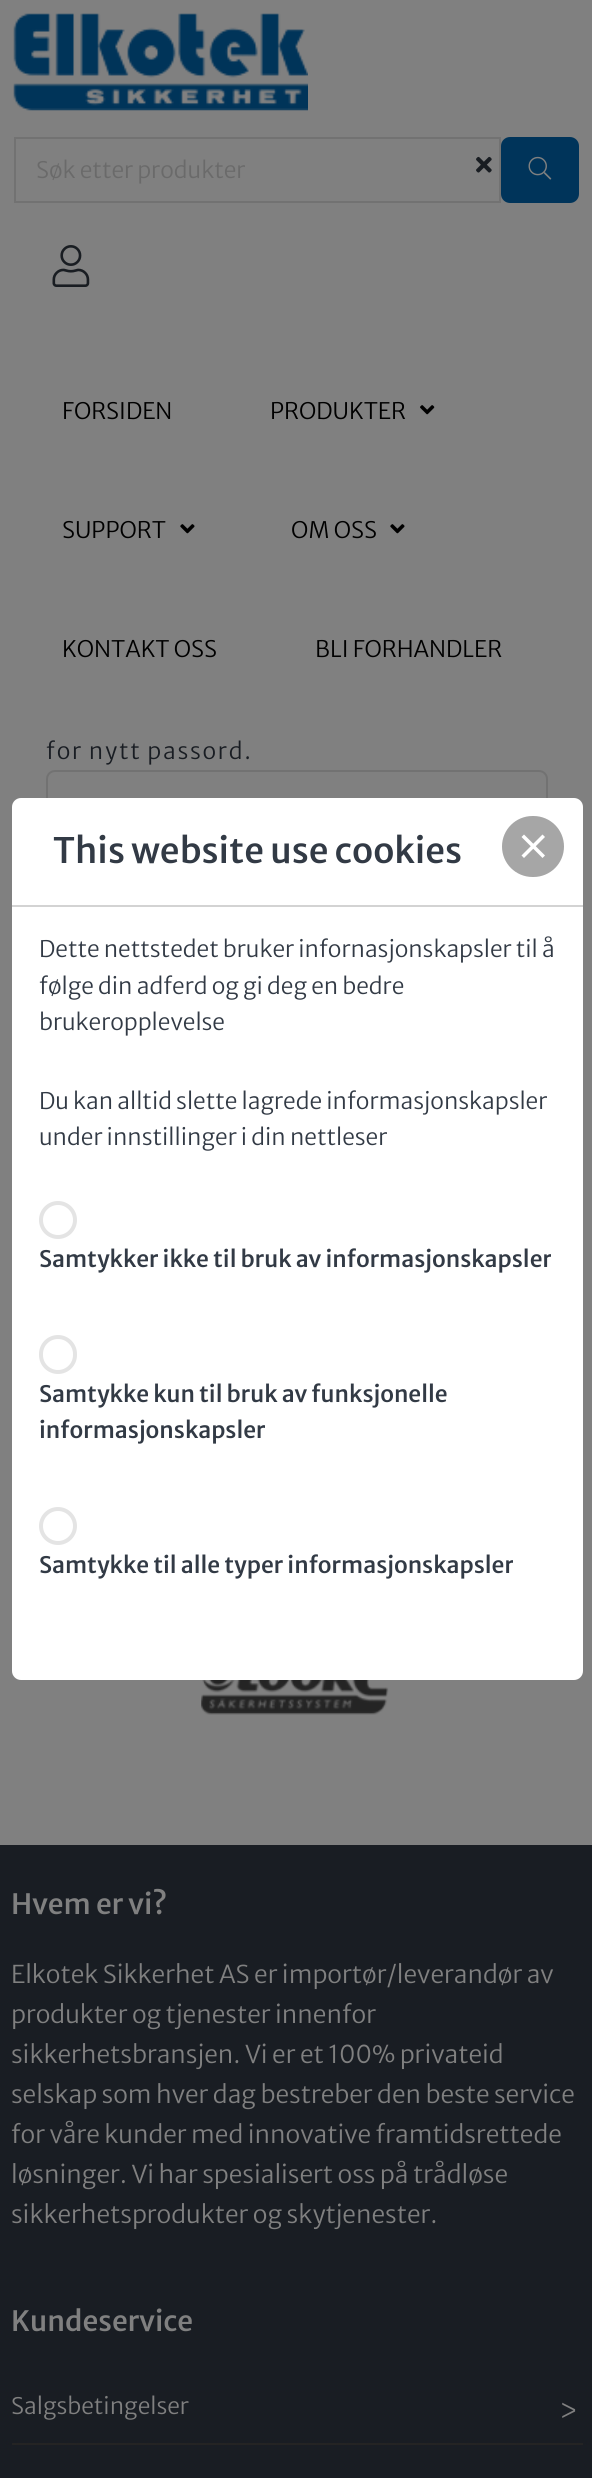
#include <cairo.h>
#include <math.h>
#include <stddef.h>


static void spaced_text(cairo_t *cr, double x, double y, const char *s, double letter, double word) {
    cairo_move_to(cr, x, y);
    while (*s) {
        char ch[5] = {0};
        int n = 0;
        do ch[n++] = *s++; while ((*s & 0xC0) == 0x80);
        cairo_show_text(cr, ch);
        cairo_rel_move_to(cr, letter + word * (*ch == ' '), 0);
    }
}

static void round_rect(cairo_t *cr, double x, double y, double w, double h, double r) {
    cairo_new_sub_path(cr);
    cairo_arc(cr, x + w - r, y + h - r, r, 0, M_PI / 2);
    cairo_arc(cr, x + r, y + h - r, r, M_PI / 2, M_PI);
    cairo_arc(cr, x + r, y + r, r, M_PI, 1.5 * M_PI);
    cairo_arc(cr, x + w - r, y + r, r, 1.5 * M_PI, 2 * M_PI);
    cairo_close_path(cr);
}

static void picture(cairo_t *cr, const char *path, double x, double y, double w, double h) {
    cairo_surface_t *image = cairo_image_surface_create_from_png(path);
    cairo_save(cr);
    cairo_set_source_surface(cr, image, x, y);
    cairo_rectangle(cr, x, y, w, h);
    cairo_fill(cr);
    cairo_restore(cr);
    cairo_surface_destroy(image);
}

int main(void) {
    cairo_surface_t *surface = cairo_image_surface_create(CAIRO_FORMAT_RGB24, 592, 2478);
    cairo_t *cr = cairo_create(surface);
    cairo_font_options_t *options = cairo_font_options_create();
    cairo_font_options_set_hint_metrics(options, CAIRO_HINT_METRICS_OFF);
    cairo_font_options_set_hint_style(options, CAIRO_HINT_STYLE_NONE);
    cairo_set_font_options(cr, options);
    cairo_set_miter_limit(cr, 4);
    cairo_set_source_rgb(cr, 0.502, 0.502, 0.502);
    cairo_paint(cr);
    picture(cr, "img1.png", 13, 13, 295, 98);
    cairo_rectangle(cr, 15, 138, 485, 64);
    cairo_set_source_rgb(cr, 0.447, 0.447, 0.447);
    cairo_stroke(cr);
    cairo_select_font_face(cr, "Merriweather Sans Light", CAIRO_FONT_SLANT_NORMAL, CAIRO_FONT_WEIGHT_NORMAL);
    cairo_set_font_size(cr, 22.75);
    cairo_set_source_rgb(cr, 0.416, 0.416, 0.416);
    cairo_move_to(cr, 36, 178);
    cairo_show_text(cr, "Søk etter produkter");
    picture(cr, "img2.png", 476, 156, 16, 17);
    cairo_set_source_rgb(cr, 0, 0.204, 0.353);
    round_rect(cr, 502, 138, 76, 64, 8);
    cairo_fill_preserve(cr);
    cairo_stroke(cr);
    picture(cr, "img3.png", 528, 156, 24, 24);
    picture(cr, "img4.png", 52, 245, 38, 42);
    cairo_set_source_rgb(cr, 0, 0, 0);
    cairo_move_to(cr, 62, 419);
    cairo_show_text(cr, "FORSIDEN");
    cairo_move_to(cr, 270, 419);
    cairo_show_text(cr, "PRODUKTER");
    picture(cr, "img5.png", 420, 405, 15, 10);
    cairo_move_to(cr, 62, 538);
    cairo_show_text(cr, "SUPPORT");
    picture(cr, "img6.png", 180, 524, 15, 10);
    cairo_move_to(cr, 291, 538);
    cairo_show_text(cr, "OM OSS");
    picture(cr, "img6.png", 390, 524, 15, 10);
    cairo_move_to(cr, 62, 657);
    cairo_show_text(cr, "KONTAKT OSS");
    cairo_move_to(cr, 315, 657);
    cairo_show_text(cr, "BLI FORHANDLER");
    cairo_set_source_rgb(cr, 0.098, 0.114, 0.137);
    spaced_text(cr, 46, 759, "for nytt passord.", 1.75, 0);
    round_rect(cr, 47, 771, 500, 59, 8);
    cairo_set_source_rgb(cr, 0.447, 0.447, 0.447);
    cairo_stroke(cr);
    picture(cr, "img7.png", 201, 1680, 188, 35);
    cairo_set_source_rgb(cr, 1, 1, 1);
    round_rect(cr, 12, 798, 571, 882, 9);
    cairo_fill(cr);
    cairo_set_source_rgb(cr, 0.827, 0.827, 0.827);
    cairo_rectangle(cr, 12, 905, 571, 2);
    cairo_fill(cr);
    cairo_select_font_face(cr, "Merriweather Sans Medium", CAIRO_FONT_SLANT_NORMAL, CAIRO_FONT_WEIGHT_NORMAL);
    cairo_set_font_size(cr, 35);
    cairo_set_source_rgb(cr, 0.196, 0.227, 0.271);
    cairo_move_to(cr, 53, 863);
    cairo_show_text(cr, "This website use cookies");
    cairo_set_source_rgb(cr, 0.651, 0.651, 0.651);
    round_rect(cr, 502, 816, 62, 61, 30.5);
    cairo_fill(cr);
    cairo_set_source_rgb(cr, 1, 1, 1);
    cairo_new_path(cr);
    cairo_move_to(cr, 524, 834.5);
    cairo_line_to(cr, 545, 855.5);
    cairo_line_to(cr, 542.5, 858);
    cairo_line_to(cr, 521.5, 837);
    cairo_close_path(cr);
    cairo_fill(cr);
    cairo_new_path(cr);
    cairo_move_to(cr, 521.5, 855.5);
    cairo_line_to(cr, 542.5, 834.5);
    cairo_line_to(cr, 545, 837);
    cairo_line_to(cr, 524, 858);
    cairo_close_path(cr);
    cairo_fill(cr);
    cairo_select_font_face(cr, "Merriweather Sans Light", CAIRO_FONT_SLANT_NORMAL, CAIRO_FONT_WEIGHT_NORMAL);
    cairo_set_font_size(cr, 22.75);
    cairo_set_source_rgb(cr, 0.196, 0.227, 0.271);
    cairo_move_to(cr, 39, 957);
    cairo_show_text(cr, "Dette nettstedet bruker infornasjonskapsler til å");
    cairo_move_to(cr, 39, 994);
    cairo_show_text(cr, "følge din adferd og gi deg en bedre");
    cairo_move_to(cr, 39, 1030);
    cairo_show_text(cr, "brukeropplevelse");
    cairo_move_to(cr, 39, 1109);
    cairo_show_text(cr, "Du kan alltid slette lagrede informasjonskapsler");
    cairo_move_to(cr, 39, 1145);
    cairo_show_text(cr, "under innstillinger i din nettleser");
    cairo_new_path(cr);
    cairo_arc(cr, 58, 1220, 17, 0, 2 * M_PI);
    cairo_set_source_rgb(cr, 0.894, 0.894, 0.894);
    cairo_set_line_width(cr, 4);
    cairo_stroke(cr);
    cairo_select_font_face(cr, "Merriweather Sans Medium", CAIRO_FONT_SLANT_NORMAL, CAIRO_FONT_WEIGHT_NORMAL);
    cairo_set_source_rgb(cr, 0.196, 0.227, 0.271);
    cairo_move_to(cr, 39, 1267);
    cairo_show_text(cr, "Samtykker ikke til bruk av informasjonskapsler");
    round_rect(cr, 41, 1337, 34, 35, 17);
    cairo_set_source_rgb(cr, 0.894, 0.894, 0.894);
    cairo_stroke(cr);
    cairo_set_source_rgb(cr, 0.196, 0.227, 0.271);
    cairo_move_to(cr, 39, 1402);
    cairo_show_text(cr, "Samtykke kun til bruk av funksjonelle");
    cairo_move_to(cr, 39, 1438);
    cairo_show_text(cr, "informasjonskapsler");
    cairo_new_path(cr);
    cairo_arc(cr, 58, 1526, 17, 0, 2 * M_PI);
    cairo_set_source_rgb(cr, 0.894, 0.894, 0.894);
    cairo_stroke(cr);
    cairo_set_source_rgb(cr, 0.196, 0.227, 0.271);
    cairo_move_to(cr, 39, 1573);
    cairo_show_text(cr, "Samtykke til alle typer informasjonskapsler");
    cairo_set_source_rgb(cr, 0.098, 0.114, 0.137);
    cairo_rectangle(cr, 0, 1845, 592, 633);
    cairo_fill(cr);
    cairo_set_font_size(cr, 28);
    cairo_set_source_rgb(cr, 0.502, 0.502, 0.502);
    cairo_move_to(cr, 11, 1914);
    cairo_show_text(cr, "Hvem er vi?");
    cairo_select_font_face(cr, "Merriweather Sans Light", CAIRO_FONT_SLANT_NORMAL, CAIRO_FONT_WEIGHT_NORMAL);
    cairo_set_font_size(cr, 24.5);
    cairo_move_to(cr, 11, 1983);
    cairo_show_text(cr, "Elkotek Sikkerhet AS er importør/leverandør av");
    cairo_move_to(cr, 11, 2023);
    cairo_show_text(cr, "produkter og tjenester innenfor");
    cairo_move_to(cr, 11, 2063);
    cairo_show_text(cr, "sikkerhetsbransjen. Vi er et 100% privateid");
    cairo_move_to(cr, 11, 2103);
    cairo_show_text(cr, "selskap som hver dag bestreber den beste service");
    cairo_move_to(cr, 11, 2143);
    cairo_show_text(cr, "for våre kunder med innovative framtidsrettede");
    cairo_move_to(cr, 11, 2183);
    cairo_show_text(cr, "løsninger. Vi har spesialisert oss på trådløse");
    cairo_move_to(cr, 11, 2223);
    cairo_show_text(cr, "sikkerhetsprodukter og skytjenester.");
    cairo_select_font_face(cr, "Merriweather Sans Medium", CAIRO_FONT_SLANT_NORMAL, CAIRO_FONT_WEIGHT_NORMAL);
    cairo_set_font_size(cr, 28);
    cairo_move_to(cr, 11, 2331);
    cairo_show_text(cr, "Kundeservice");
    cairo_set_source_rgb(cr, 0.141, 0.141, 0.141);
    cairo_rectangle(cr, 12, 2443, 571, 2);
    cairo_fill(cr);
    cairo_select_font_face(cr, "Merriweather Sans Light", CAIRO_FONT_SLANT_NORMAL, CAIRO_FONT_WEIGHT_NORMAL);
    cairo_set_font_size(cr, 22.75);
    cairo_set_source_rgb(cr, 0.502, 0.502, 0.502);
    cairo_move_to(cr, 11, 2414);
    cairo_show_text(cr, "Salgsbetingelser");
    cairo_select_font_face(cr, "DejaVu Sans", CAIRO_FONT_SLANT_NORMAL, CAIRO_FONT_WEIGHT_NORMAL);
    cairo_set_font_size(cr, 21);
    cairo_move_to(cr, 561, 2418);
    cairo_show_text(cr, "ᐳ");
    cairo_surface_write_to_png(surface, "page.png");
    cairo_font_options_destroy(options);
    cairo_destroy(cr);
    cairo_surface_destroy(surface);
    return 0;
}
